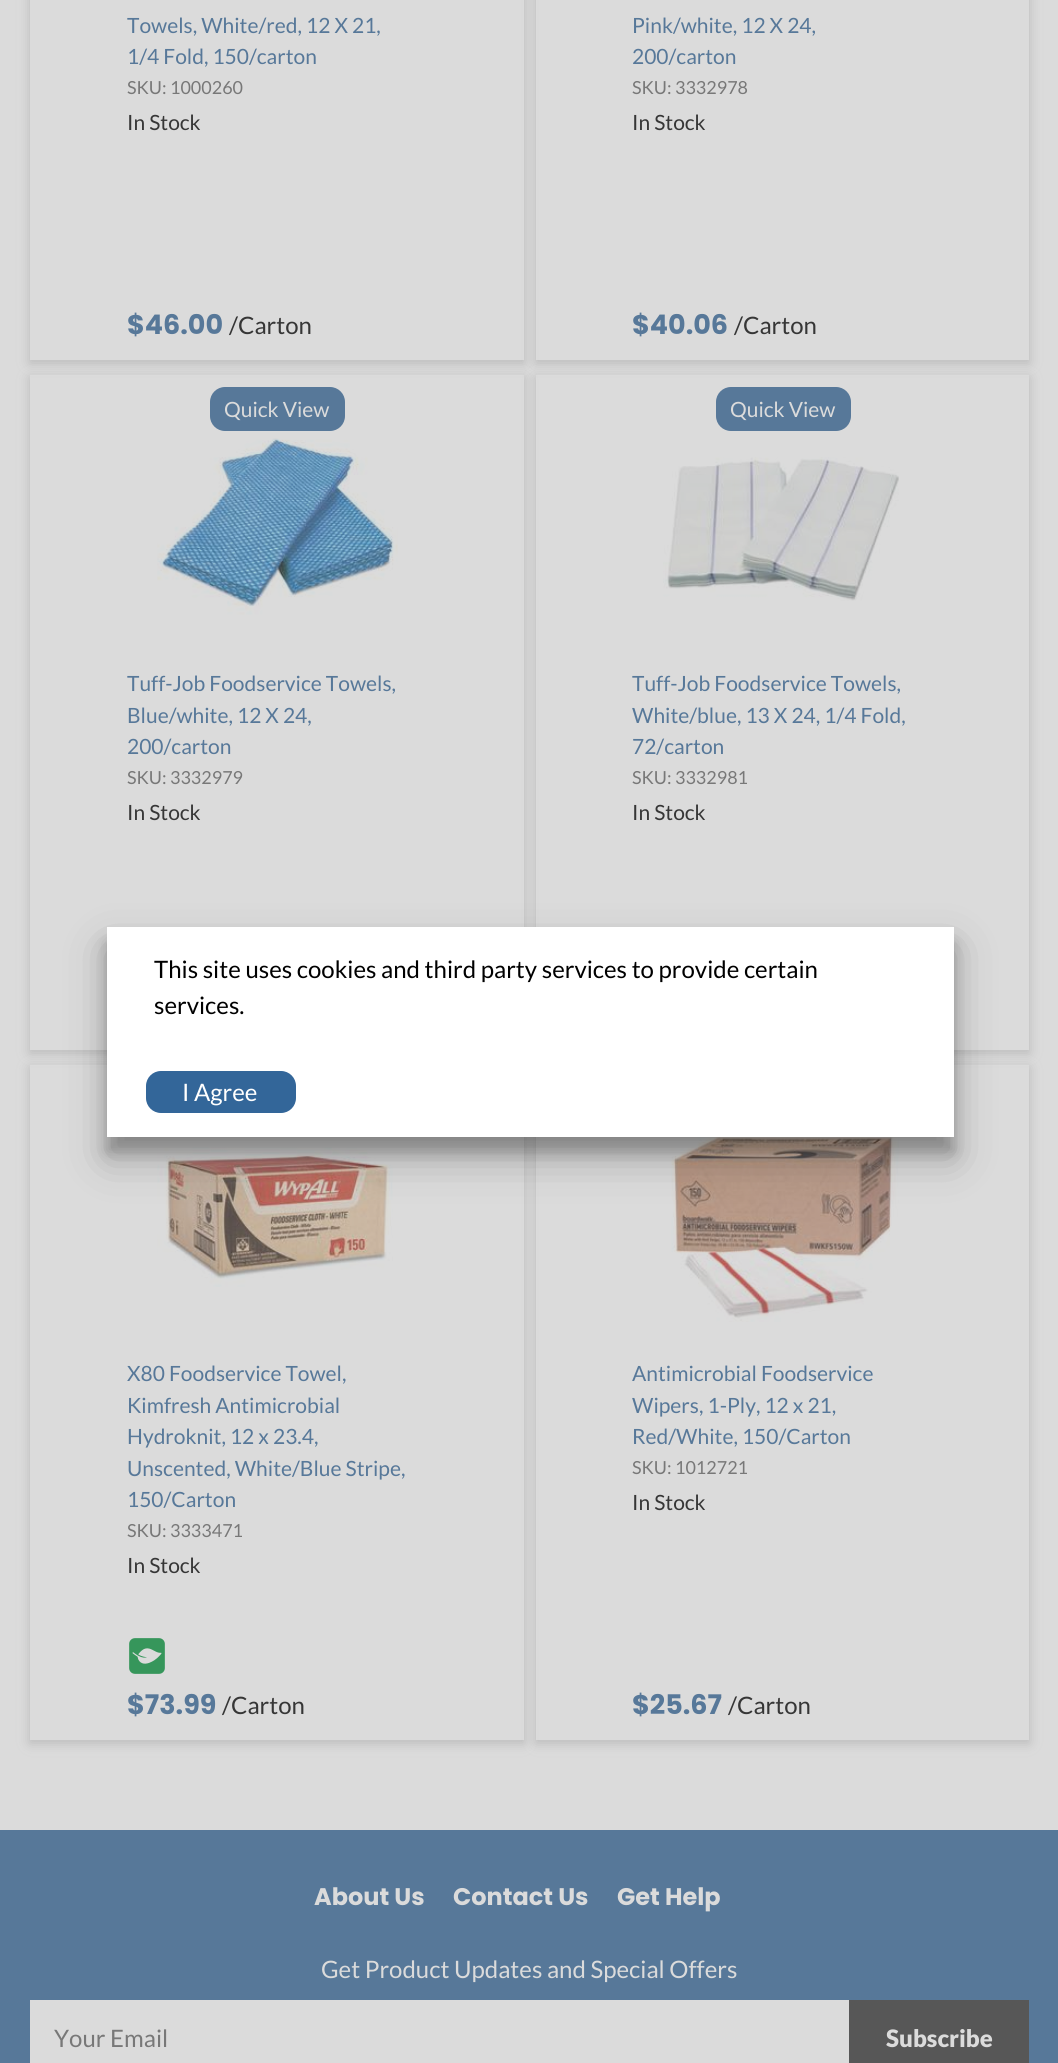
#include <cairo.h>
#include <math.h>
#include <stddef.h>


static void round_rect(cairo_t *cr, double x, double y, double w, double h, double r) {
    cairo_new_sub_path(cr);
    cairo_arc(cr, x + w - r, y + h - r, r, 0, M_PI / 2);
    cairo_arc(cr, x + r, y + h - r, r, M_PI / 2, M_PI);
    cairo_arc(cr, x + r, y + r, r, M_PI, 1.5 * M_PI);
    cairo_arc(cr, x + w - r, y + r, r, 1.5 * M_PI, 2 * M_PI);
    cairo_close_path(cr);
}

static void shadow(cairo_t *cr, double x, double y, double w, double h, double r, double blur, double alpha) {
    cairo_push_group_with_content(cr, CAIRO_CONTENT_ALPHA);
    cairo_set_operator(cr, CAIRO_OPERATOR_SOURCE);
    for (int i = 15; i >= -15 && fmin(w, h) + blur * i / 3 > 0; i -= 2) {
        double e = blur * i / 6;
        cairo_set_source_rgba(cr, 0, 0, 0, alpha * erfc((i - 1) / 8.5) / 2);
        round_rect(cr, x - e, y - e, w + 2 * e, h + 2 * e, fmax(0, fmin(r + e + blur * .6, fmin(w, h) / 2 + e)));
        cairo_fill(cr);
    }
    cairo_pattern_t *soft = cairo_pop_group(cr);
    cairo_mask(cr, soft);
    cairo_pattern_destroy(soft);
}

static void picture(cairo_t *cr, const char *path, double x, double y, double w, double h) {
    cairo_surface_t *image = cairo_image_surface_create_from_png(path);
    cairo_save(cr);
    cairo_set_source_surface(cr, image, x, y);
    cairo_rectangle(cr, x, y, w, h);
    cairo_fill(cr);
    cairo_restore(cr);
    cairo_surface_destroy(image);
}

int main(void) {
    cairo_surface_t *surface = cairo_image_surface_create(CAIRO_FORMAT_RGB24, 1058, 2063);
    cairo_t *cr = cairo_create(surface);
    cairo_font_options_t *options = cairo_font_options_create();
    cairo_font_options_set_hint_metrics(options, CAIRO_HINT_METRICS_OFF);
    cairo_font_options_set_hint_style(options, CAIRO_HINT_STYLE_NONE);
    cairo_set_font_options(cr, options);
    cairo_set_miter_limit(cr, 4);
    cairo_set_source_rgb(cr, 0.859, 0.859, 0.859);
    cairo_paint(cr);
    cairo_save(cr);
    cairo_set_fill_rule(cr, CAIRO_FILL_RULE_EVEN_ODD);
    cairo_new_path(cr);
    cairo_move_to(cr, 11, 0);
    cairo_line_to(cr, 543, 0);
    cairo_line_to(cr, 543, 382);
    cairo_line_to(cr, 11, 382);
    cairo_close_path(cr);
    cairo_move_to(cr, 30, -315);
    cairo_line_to(cr, 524, -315);
    cairo_line_to(cr, 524, 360);
    cairo_line_to(cr, 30, 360);
    cairo_close_path(cr);
    cairo_clip(cr);
    cairo_set_source_rgb(cr, 0.729, 0.729, 0.729);
    shadow(cr, 30, -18, 494, 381, 0, 6, 1);
    cairo_restore(cr);
    cairo_select_font_face(cr, "Lato", CAIRO_FONT_SLANT_NORMAL, CAIRO_FONT_WEIGHT_NORMAL);
    cairo_set_font_size(cr, 21);
    cairo_set_source_rgb(cr, 0.341, 0.471, 0.6);
    cairo_move_to(cr, 127, 33);
    cairo_show_text(cr, "Towels, White/red, 12 X 21,");
    cairo_move_to(cr, 127, 64);
    cairo_show_text(cr, "1/4 Fold, 150/carton");
    cairo_set_font_size(cr, 18);
    cairo_set_source_rgb(cr, 0.471, 0.471, 0.471);
    cairo_move_to(cr, 127, 94);
    cairo_show_text(cr, "SKU: 1000260");
    cairo_set_font_size(cr, 21);
    cairo_set_source_rgb(cr, 0.212, 0.212, 0.212);
    cairo_move_to(cr, 127, 130);
    cairo_show_text(cr, "In Stock");
    cairo_select_font_face(cr, "Poppins", CAIRO_FONT_SLANT_NORMAL, CAIRO_FONT_WEIGHT_BOLD);
    cairo_set_font_size(cr, 27);
    cairo_set_source_rgb(cr, 0.341, 0.471, 0.6);
    cairo_move_to(cr, 127, 334);
    cairo_show_text(cr, "$46.00");
    cairo_select_font_face(cr, "Lato", CAIRO_FONT_SLANT_NORMAL, CAIRO_FONT_WEIGHT_NORMAL);
    cairo_set_font_size(cr, 24);
    cairo_set_source_rgb(cr, 0.212, 0.212, 0.212);
    cairo_move_to(cr, 229, 334);
    cairo_show_text(cr, "/Carton");
    cairo_save(cr);
    cairo_set_fill_rule(cr, CAIRO_FILL_RULE_EVEN_ODD);
    cairo_new_path(cr);
    cairo_move_to(cr, 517, 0);
    cairo_line_to(cr, 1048, 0);
    cairo_line_to(cr, 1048, 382);
    cairo_line_to(cr, 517, 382);
    cairo_close_path(cr);
    cairo_move_to(cr, 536, -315);
    cairo_line_to(cr, 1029, -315);
    cairo_line_to(cr, 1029, 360);
    cairo_line_to(cr, 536, 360);
    cairo_close_path(cr);
    cairo_clip(cr);
    cairo_set_source_rgb(cr, 0.729, 0.729, 0.729);
    shadow(cr, 536, -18, 493, 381, 0, 6, 1);
    cairo_restore(cr);
    cairo_set_font_size(cr, 21);
    cairo_set_source_rgb(cr, 0.341, 0.471, 0.6);
    cairo_move_to(cr, 632, 33);
    cairo_show_text(cr, "Pink/white, 12 X 24,");
    cairo_move_to(cr, 632, 64);
    cairo_show_text(cr, "200/carton");
    cairo_set_font_size(cr, 18);
    cairo_set_source_rgb(cr, 0.471, 0.471, 0.471);
    cairo_move_to(cr, 632, 94);
    cairo_show_text(cr, "SKU: 3332978");
    cairo_set_font_size(cr, 21);
    cairo_set_source_rgb(cr, 0.212, 0.212, 0.212);
    cairo_move_to(cr, 632, 130);
    cairo_show_text(cr, "In Stock");
    cairo_select_font_face(cr, "Poppins", CAIRO_FONT_SLANT_NORMAL, CAIRO_FONT_WEIGHT_BOLD);
    cairo_set_font_size(cr, 27);
    cairo_set_source_rgb(cr, 0.341, 0.471, 0.6);
    cairo_move_to(cr, 632, 334);
    cairo_show_text(cr, "$40.06");
    cairo_select_font_face(cr, "Lato", CAIRO_FONT_SLANT_NORMAL, CAIRO_FONT_WEIGHT_NORMAL);
    cairo_set_font_size(cr, 24);
    cairo_set_source_rgb(cr, 0.212, 0.212, 0.212);
    cairo_move_to(cr, 734, 334);
    cairo_show_text(cr, "/Carton");
    cairo_save(cr);
    cairo_set_fill_rule(cr, CAIRO_FILL_RULE_EVEN_ODD);
    cairo_new_path(cr);
    cairo_move_to(cr, 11, 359);
    cairo_line_to(cr, 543, 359);
    cairo_line_to(cr, 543, 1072);
    cairo_line_to(cr, 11, 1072);
    cairo_close_path(cr);
    cairo_move_to(cr, 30, 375);
    cairo_line_to(cr, 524, 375);
    cairo_line_to(cr, 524, 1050);
    cairo_line_to(cr, 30, 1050);
    cairo_close_path(cr);
    cairo_clip(cr);
    cairo_set_source_rgb(cr, 0.729, 0.729, 0.729);
    shadow(cr, 30, 378, 494, 675, 0, 6, 1);
    cairo_restore(cr);
    cairo_set_source_rgb(cr, 0.341, 0.471, 0.6);
    round_rect(cr, 210, 387, 135, 44, 15);
    cairo_fill(cr);
    cairo_set_font_size(cr, 21);
    cairo_set_source_rgb(cr, 0.859, 0.859, 0.859);
    cairo_move_to(cr, 224, 417);
    cairo_show_text(cr, "Quick View");
    cairo_set_source_rgb(cr, 0.341, 0.471, 0.6);
    cairo_move_to(cr, 127, 691);
    cairo_show_text(cr, "Tuff-Job Foodservice Towels,");
    cairo_move_to(cr, 127, 723);
    cairo_show_text(cr, "Blue/white, 12 X 24,");
    cairo_move_to(cr, 127, 754);
    cairo_show_text(cr, "200/carton");
    cairo_set_font_size(cr, 18);
    cairo_set_source_rgb(cr, 0.471, 0.471, 0.471);
    cairo_move_to(cr, 127, 784);
    cairo_show_text(cr, "SKU: 3332979");
    cairo_set_font_size(cr, 21);
    cairo_set_source_rgb(cr, 0.212, 0.212, 0.212);
    cairo_move_to(cr, 127, 820);
    cairo_show_text(cr, "In Stock");
    picture(cr, "img1.png", 157, 438, 241, 177);
    cairo_save(cr);
    cairo_set_fill_rule(cr, CAIRO_FILL_RULE_EVEN_ODD);
    cairo_new_path(cr);
    cairo_move_to(cr, 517, 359);
    cairo_line_to(cr, 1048, 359);
    cairo_line_to(cr, 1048, 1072);
    cairo_line_to(cr, 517, 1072);
    cairo_close_path(cr);
    cairo_move_to(cr, 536, 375);
    cairo_line_to(cr, 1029, 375);
    cairo_line_to(cr, 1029, 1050);
    cairo_line_to(cr, 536, 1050);
    cairo_close_path(cr);
    cairo_clip(cr);
    cairo_set_source_rgb(cr, 0.729, 0.729, 0.729);
    shadow(cr, 536, 378, 493, 675, 0, 6, 1);
    cairo_restore(cr);
    cairo_set_source_rgb(cr, 0.341, 0.471, 0.6);
    round_rect(cr, 716, 387, 135, 44, 15);
    cairo_fill(cr);
    cairo_set_source_rgb(cr, 0.859, 0.859, 0.859);
    cairo_move_to(cr, 730, 417);
    cairo_show_text(cr, "Quick View");
    cairo_set_source_rgb(cr, 0.341, 0.471, 0.6);
    cairo_move_to(cr, 632, 691);
    cairo_show_text(cr, "Tuff-Job Foodservice Towels,");
    cairo_move_to(cr, 632, 723);
    cairo_show_text(cr, "White/blue, 13 X 24, 1/4 Fold,");
    cairo_move_to(cr, 632, 754);
    cairo_show_text(cr, "72/carton");
    cairo_set_font_size(cr, 18);
    cairo_set_source_rgb(cr, 0.471, 0.471, 0.471);
    cairo_move_to(cr, 632, 784);
    cairo_show_text(cr, "SKU: 3332981");
    cairo_set_font_size(cr, 21);
    cairo_set_source_rgb(cr, 0.212, 0.212, 0.212);
    cairo_move_to(cr, 632, 820);
    cairo_show_text(cr, "In Stock");
    picture(cr, "img2.png", 663, 457, 236, 144);
    cairo_save(cr);
    cairo_set_fill_rule(cr, CAIRO_FILL_RULE_EVEN_ODD);
    cairo_new_path(cr);
    cairo_move_to(cr, 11, 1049);
    cairo_line_to(cr, 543, 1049);
    cairo_line_to(cr, 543, 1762);
    cairo_line_to(cr, 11, 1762);
    cairo_close_path(cr);
    cairo_move_to(cr, 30, 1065);
    cairo_line_to(cr, 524, 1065);
    cairo_line_to(cr, 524, 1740);
    cairo_line_to(cr, 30, 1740);
    cairo_close_path(cr);
    cairo_clip(cr);
    cairo_set_source_rgb(cr, 0.729, 0.729, 0.729);
    shadow(cr, 30, 1068, 494, 675, 0, 6, 1);
    cairo_restore(cr);
    picture(cr, "img3.png", 157, 1147, 236, 140);
    cairo_set_source_rgb(cr, 0.341, 0.471, 0.6);
    cairo_move_to(cr, 127, 1381);
    cairo_show_text(cr, "X80 Foodservice Towel,");
    cairo_move_to(cr, 127, 1413);
    cairo_show_text(cr, "Kimfresh Antimicrobial");
    cairo_move_to(cr, 127, 1444);
    cairo_show_text(cr, "Hydroknit, 12 x 23.4,");
    cairo_move_to(cr, 127, 1476);
    cairo_show_text(cr, "Unscented, White/Blue Stripe,");
    cairo_move_to(cr, 127, 1507);
    cairo_show_text(cr, "150/Carton");
    cairo_set_font_size(cr, 18);
    cairo_set_source_rgb(cr, 0.471, 0.471, 0.471);
    cairo_move_to(cr, 127, 1537);
    cairo_show_text(cr, "SKU: 3333471");
    cairo_set_font_size(cr, 21);
    cairo_set_source_rgb(cr, 0.212, 0.212, 0.212);
    cairo_move_to(cr, 127, 1573);
    cairo_show_text(cr, "In Stock");
    picture(cr, "img4.png", 129, 1638, 36, 36);
    cairo_select_font_face(cr, "Poppins", CAIRO_FONT_SLANT_NORMAL, CAIRO_FONT_WEIGHT_BOLD);
    cairo_set_font_size(cr, 27);
    cairo_set_source_rgb(cr, 0.341, 0.471, 0.6);
    cairo_move_to(cr, 127, 1714);
    cairo_show_text(cr, "$73.99");
    cairo_select_font_face(cr, "Lato", CAIRO_FONT_SLANT_NORMAL, CAIRO_FONT_WEIGHT_NORMAL);
    cairo_set_font_size(cr, 24);
    cairo_set_source_rgb(cr, 0.212, 0.212, 0.212);
    cairo_move_to(cr, 222, 1714);
    cairo_show_text(cr, "/Carton");
    cairo_save(cr);
    cairo_set_fill_rule(cr, CAIRO_FILL_RULE_EVEN_ODD);
    cairo_new_path(cr);
    cairo_move_to(cr, 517, 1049);
    cairo_line_to(cr, 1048, 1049);
    cairo_line_to(cr, 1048, 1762);
    cairo_line_to(cr, 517, 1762);
    cairo_close_path(cr);
    cairo_move_to(cr, 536, 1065);
    cairo_line_to(cr, 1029, 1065);
    cairo_line_to(cr, 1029, 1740);
    cairo_line_to(cr, 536, 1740);
    cairo_close_path(cr);
    cairo_clip(cr);
    cairo_set_source_rgb(cr, 0.729, 0.729, 0.729);
    shadow(cr, 536, 1068, 493, 675, 0, 6, 1);
    cairo_restore(cr);
    picture(cr, "img5.png", 671, 1137, 228, 185);
    cairo_set_font_size(cr, 21);
    cairo_set_source_rgb(cr, 0.341, 0.471, 0.6);
    cairo_move_to(cr, 632, 1381);
    cairo_show_text(cr, "Antimicrobial Foodservice");
    cairo_move_to(cr, 632, 1413);
    cairo_show_text(cr, "Wipers, 1-Ply, 12 x 21,");
    cairo_move_to(cr, 632, 1444);
    cairo_show_text(cr, "Red/White, 150/Carton");
    cairo_set_font_size(cr, 18);
    cairo_set_source_rgb(cr, 0.471, 0.471, 0.471);
    cairo_move_to(cr, 632, 1474);
    cairo_show_text(cr, "SKU: 1012721");
    cairo_set_font_size(cr, 21);
    cairo_set_source_rgb(cr, 0.212, 0.212, 0.212);
    cairo_move_to(cr, 632, 1510);
    cairo_show_text(cr, "In Stock");
    cairo_select_font_face(cr, "Poppins", CAIRO_FONT_SLANT_NORMAL, CAIRO_FONT_WEIGHT_BOLD);
    cairo_set_font_size(cr, 27);
    cairo_set_source_rgb(cr, 0.341, 0.471, 0.6);
    cairo_move_to(cr, 632, 1714);
    cairo_show_text(cr, "$25.67");
    cairo_select_font_face(cr, "Lato", CAIRO_FONT_SLANT_NORMAL, CAIRO_FONT_WEIGHT_NORMAL);
    cairo_set_font_size(cr, 24);
    cairo_set_source_rgb(cr, 0.212, 0.212, 0.212);
    cairo_move_to(cr, 728, 1714);
    cairo_show_text(cr, "/Carton");
    cairo_set_source_rgb(cr, 0.341, 0.471, 0.6);
    cairo_rectangle(cr, 0, 1830, 1058, 233);
    cairo_fill(cr);
    cairo_select_font_face(cr, "Poppins", CAIRO_FONT_SLANT_NORMAL, CAIRO_FONT_WEIGHT_BOLD);
    cairo_set_source_rgb(cr, 0.859, 0.859, 0.859);
    cairo_move_to(cr, 314, 1905);
    cairo_show_text(cr, "About Us");
    cairo_move_to(cr, 453, 1905);
    cairo_show_text(cr, "Contact Us");
    cairo_move_to(cr, 617, 1905);
    cairo_show_text(cr, "Get Help");
    cairo_select_font_face(cr, "Lato", CAIRO_FONT_SLANT_NORMAL, CAIRO_FONT_WEIGHT_NORMAL);
    cairo_move_to(cr, 321, 1978);
    cairo_show_text(cr, "Get Product Updates and Special Offers");
    cairo_rectangle(cr, 30, 2000, 819, 63);
    cairo_fill(cr);
    cairo_set_source_rgb(cr, 0.471, 0.471, 0.471);
    cairo_move_to(cr, 54, 2047);
    cairo_show_text(cr, "Your Email");
    cairo_set_source_rgb(cr, 0.341, 0.341, 0.341);
    cairo_rectangle(cr, 849, 2000, 180, 63);
    cairo_fill(cr);
    cairo_select_font_face(cr, "Lato Black", CAIRO_FONT_SLANT_NORMAL, CAIRO_FONT_WEIGHT_NORMAL);
    cairo_set_source_rgb(cr, 0.859, 0.859, 0.859);
    cairo_move_to(cr, 886, 2047);
    cairo_show_text(cr, "Subscribe");
    cairo_set_source_rgb(cr, 0, 0, 0);
    shadow(cr, 107, 942, 847, 210, 0, 7.5, 0.22);
    shadow(cr, 107, 948, 847, 210, 0, 21, 0.25);
    cairo_set_source_rgb(cr, 1, 1, 1);
    cairo_rectangle(cr, 107, 927, 847, 210);
    cairo_fill(cr);
    cairo_select_font_face(cr, "Lato", CAIRO_FONT_SLANT_NORMAL, CAIRO_FONT_WEIGHT_NORMAL);
    cairo_set_source_rgb(cr, 0, 0, 0);
    cairo_move_to(cr, 154, 978);
    cairo_show_text(cr, "This site uses cookies and third party services to provide certain");
    cairo_move_to(cr, 154, 1014);
    cairo_show_text(cr, "services.");
    cairo_set_source_rgb(cr, 0.2, 0.4, 0.6);
    round_rect(cr, 146, 1071, 150, 42, 15);
    cairo_fill(cr);
    cairo_set_source_rgb(cr, 1, 1, 1);
    cairo_move_to(cr, 182, 1101);
    cairo_show_text(cr, "I Agree");
    cairo_surface_write_to_png(surface, "page.png");
    cairo_font_options_destroy(options);
    cairo_destroy(cr);
    cairo_surface_destroy(surface);
    return 0;
}
